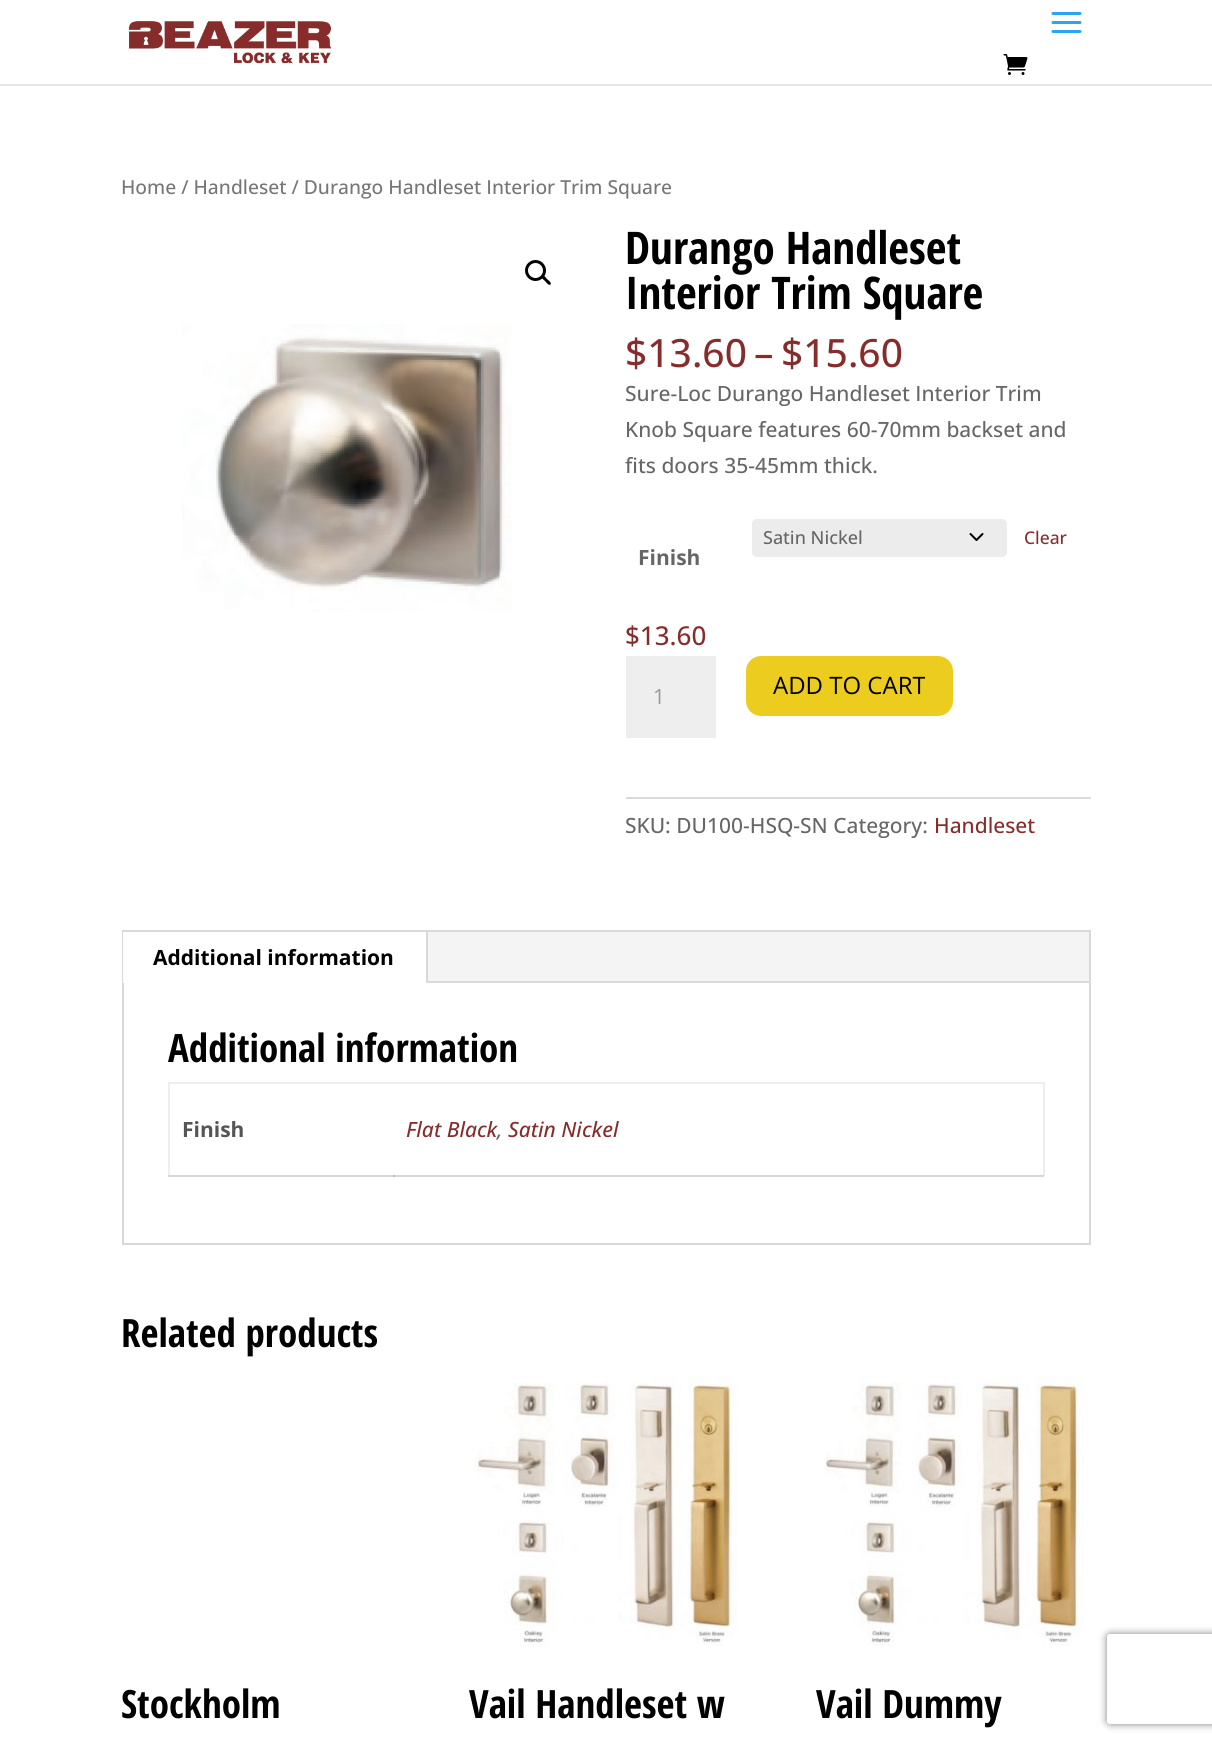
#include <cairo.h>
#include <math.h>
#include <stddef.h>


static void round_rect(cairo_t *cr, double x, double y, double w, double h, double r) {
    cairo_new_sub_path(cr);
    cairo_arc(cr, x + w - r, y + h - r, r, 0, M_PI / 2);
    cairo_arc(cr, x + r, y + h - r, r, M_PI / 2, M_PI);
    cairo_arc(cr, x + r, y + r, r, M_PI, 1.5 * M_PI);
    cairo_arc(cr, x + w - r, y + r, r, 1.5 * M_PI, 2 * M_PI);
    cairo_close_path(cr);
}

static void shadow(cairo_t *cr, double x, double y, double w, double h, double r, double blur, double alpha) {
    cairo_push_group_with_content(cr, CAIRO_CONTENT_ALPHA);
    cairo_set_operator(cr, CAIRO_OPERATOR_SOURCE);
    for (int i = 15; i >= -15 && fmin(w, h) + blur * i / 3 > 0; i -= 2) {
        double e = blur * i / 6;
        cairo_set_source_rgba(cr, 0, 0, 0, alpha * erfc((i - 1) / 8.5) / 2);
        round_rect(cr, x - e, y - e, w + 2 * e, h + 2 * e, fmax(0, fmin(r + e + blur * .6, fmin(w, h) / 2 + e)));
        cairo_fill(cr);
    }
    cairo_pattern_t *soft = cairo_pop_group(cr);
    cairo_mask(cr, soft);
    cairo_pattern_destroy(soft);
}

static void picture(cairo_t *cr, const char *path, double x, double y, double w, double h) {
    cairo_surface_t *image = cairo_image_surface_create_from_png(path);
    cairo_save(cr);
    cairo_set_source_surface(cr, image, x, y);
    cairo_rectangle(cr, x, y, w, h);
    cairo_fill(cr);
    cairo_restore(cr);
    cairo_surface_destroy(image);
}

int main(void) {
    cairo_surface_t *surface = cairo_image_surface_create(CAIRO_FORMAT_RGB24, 1212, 1744);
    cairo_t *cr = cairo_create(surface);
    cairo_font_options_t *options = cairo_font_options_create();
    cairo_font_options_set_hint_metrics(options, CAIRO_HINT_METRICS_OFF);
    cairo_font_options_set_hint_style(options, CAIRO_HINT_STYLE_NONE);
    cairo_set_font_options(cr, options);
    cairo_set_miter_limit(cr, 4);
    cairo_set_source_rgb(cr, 1, 1, 1);
    cairo_paint(cr);
    cairo_set_source_rgb(cr, 0.902, 0.902, 0.902);
    cairo_rectangle(cr, 0, 84, 1212, 2);
    cairo_fill(cr);
    picture(cr, "img1.png", 129, 21, 203, 43);
    picture(cr, "img2.png", 1051, 12, 31, 21);
    picture(cr, "img3.png", 1003, 54, 25, 21);
    cairo_select_font_face(cr, "Open Sans Medium", CAIRO_FONT_SLANT_NORMAL, CAIRO_FONT_WEIGHT_NORMAL);
    cairo_set_font_size(cr, 19.3);
    cairo_set_source_rgb(cr, 0.463, 0.463, 0.463);
    cairo_move_to(cr, 121, 194);
    cairo_show_text(cr, "Home / Handleset / Durango Handleset Interior Trim Square");
    cairo_new_path(cr);
    cairo_arc(cr, 535.5, 270.5, 9, 0, 2 * M_PI);
    cairo_set_source_rgb(cr, 0, 0, 0);
    cairo_set_line_width(cr, 3);
    cairo_stroke(cr);
    cairo_new_path(cr);
    cairo_move_to(cr, 542, 276);
    cairo_curve_to(cr, 543.5, 274, 546, 278, 547, 279);
    cairo_curve_to(cr, 548, 280, 552, 282.5, 550.5, 284.5);
    cairo_curve_to(cr, 548.5, 286, 546, 282, 545, 281);
    cairo_curve_to(cr, 544, 280, 540, 277.5, 542, 276);
    cairo_close_path(cr);
    cairo_fill(cr);
    picture(cr, "img4.png", 182, 324, 330, 288);
    cairo_select_font_face(cr, "Open Sans Condensed", CAIRO_FONT_SLANT_NORMAL, CAIRO_FONT_WEIGHT_BOLD);
    cairo_set_font_size(cr, 45);
    cairo_move_to(cr, 625, 264);
    cairo_show_text(cr, "Durango Handleset");
    cairo_move_to(cr, 625, 309);
    cairo_show_text(cr, "Interior Trim Square");
    cairo_select_font_face(cr, "Open Sans Medium", CAIRO_FONT_SLANT_NORMAL, CAIRO_FONT_WEIGHT_NORMAL);
    cairo_set_font_size(cr, 39);
    cairo_set_source_rgb(cr, 0.525, 0.176, 0.173);
    cairo_move_to(cr, 625, 367);
    cairo_show_text(cr, "$13.60");
    cairo_move_to(cr, 754, 367);
    cairo_show_text(cr, "–");
    cairo_move_to(cr, 781, 367);
    cairo_show_text(cr, "$15.60");
    cairo_set_font_size(cr, 21);
    cairo_set_source_rgb(cr, 0.4, 0.4, 0.4);
    cairo_move_to(cr, 625, 401);
    cairo_show_text(cr, "Sure-Loc Durango Handleset Interior Trim");
    cairo_move_to(cr, 625, 437);
    cairo_show_text(cr, "Knob Square features 60-70mm backset and");
    cairo_move_to(cr, 625, 473);
    cairo_show_text(cr, "fits doors 35-45mm thick.");
    cairo_set_source_rgb(cr, 0.925, 0.925, 0.925);
    round_rect(cr, 752, 519, 255, 38, 5);
    cairo_fill(cr);
    cairo_new_path(cr);
    cairo_move_to(cr, 970.5, 534);
    cairo_line_to(cr, 976.5, 540);
    cairo_line_to(cr, 982.5, 534);
    cairo_set_source_rgb(cr, 0, 0, 0);
    cairo_set_line_width(cr, 2);
    cairo_set_line_cap(cr, CAIRO_LINE_CAP_ROUND);
    cairo_set_line_join(cr, CAIRO_LINE_JOIN_ROUND);
    cairo_stroke(cr);
    cairo_set_font_size(cr, 18);
    cairo_set_source_rgb(cr, 0.4, 0.4, 0.4);
    cairo_move_to(cr, 763, 544);
    cairo_show_text(cr, "Satin Nickel");
    cairo_set_font_size(cr, 17.5);
    cairo_set_source_rgb(cr, 0.525, 0.176, 0.173);
    cairo_move_to(cr, 1024, 544);
    cairo_show_text(cr, "Clear");
    cairo_select_font_face(cr, "Open Sans", CAIRO_FONT_SLANT_NORMAL, CAIRO_FONT_WEIGHT_BOLD);
    cairo_set_font_size(cr, 21);
    cairo_set_source_rgb(cr, 0.4, 0.4, 0.4);
    cairo_move_to(cr, 638, 565);
    cairo_show_text(cr, "Finish");
    cairo_select_font_face(cr, "Open Sans Medium", CAIRO_FONT_SLANT_NORMAL, CAIRO_FONT_WEIGHT_NORMAL);
    cairo_set_font_size(cr, 26);
    cairo_set_source_rgb(cr, 0.525, 0.176, 0.173);
    cairo_move_to(cr, 625, 645);
    cairo_show_text(cr, "$13.60");
    cairo_set_source_rgb(cr, 0.922, 0.804, 0.122);
    round_rect(cr, 747.5, 657.5, 204, 57, 13.5);
    cairo_fill_preserve(cr);
    cairo_set_line_width(cr, 3);
    cairo_set_line_cap(cr, CAIRO_LINE_CAP_BUTT);
    cairo_set_line_join(cr, CAIRO_LINE_JOIN_MITER);
    cairo_stroke(cr);
    cairo_select_font_face(cr, "Open Sans", CAIRO_FONT_SLANT_NORMAL, CAIRO_FONT_WEIGHT_NORMAL);
    cairo_set_font_size(cr, 24);
    cairo_set_source_rgb(cr, 0, 0, 0);
    cairo_move_to(cr, 773, 694);
    cairo_show_text(cr, "ADD TO CART");
    cairo_set_source_rgb(cr, 0.933, 0.933, 0.933);
    cairo_rectangle(cr, 626, 656, 90, 82);
    cairo_fill(cr);
    cairo_set_font_size(cr, 21);
    cairo_set_source_rgb(cr, 0.6, 0.6, 0.6);
    cairo_move_to(cr, 653, 704);
    cairo_show_text(cr, "1");
    cairo_set_source_rgb(cr, 0.855, 0.855, 0.855);
    cairo_rectangle(cr, 626, 797, 465, 2);
    cairo_fill(cr);
    cairo_select_font_face(cr, "Open Sans Medium", CAIRO_FONT_SLANT_NORMAL, CAIRO_FONT_WEIGHT_NORMAL);
    cairo_set_source_rgb(cr, 0.4, 0.4, 0.4);
    cairo_move_to(cr, 625, 833);
    cairo_show_text(cr, "SKU: DU100-HSQ-SN Category:");
    cairo_set_source_rgb(cr, 0.525, 0.176, 0.173);
    cairo_move_to(cr, 934, 833);
    cairo_show_text(cr, "Handleset");
    cairo_rectangle(cr, 123, 931, 967, 313);
    cairo_set_source_rgb(cr, 0.851, 0.851, 0.851);
    cairo_set_line_width(cr, 2);
    cairo_stroke(cr);
    cairo_set_source_rgb(cr, 0.957, 0.957, 0.957);
    cairo_rectangle(cr, 428, 932, 661, 49);
    cairo_fill(cr);
    cairo_set_source_rgb(cr, 1, 1, 1);
    cairo_rectangle(cr, 123, 932, 1, 51);
    cairo_fill(cr);
    cairo_set_source_rgb(cr, 0.851, 0.851, 0.851);
    cairo_rectangle(cr, 426, 932, 2, 51);
    cairo_fill(cr);
    cairo_select_font_face(cr, "Open Sans", CAIRO_FONT_SLANT_NORMAL, CAIRO_FONT_WEIGHT_BOLD);
    cairo_set_source_rgb(cr, 0, 0, 0);
    cairo_move_to(cr, 153, 965);
    cairo_show_text(cr, "Additional information");
    cairo_set_source_rgb(cr, 0.851, 0.851, 0.851);
    cairo_rectangle(cr, 428, 981, 661, 2);
    cairo_fill(cr);
    cairo_select_font_face(cr, "Open Sans Condensed", CAIRO_FONT_SLANT_NORMAL, CAIRO_FONT_WEIGHT_BOLD);
    cairo_set_font_size(cr, 39);
    cairo_set_source_rgb(cr, 0, 0, 0);
    cairo_move_to(cr, 168, 1062);
    cairo_show_text(cr, "Additional information");
    cairo_set_source_rgb(cr, 0.933, 0.933, 0.933);
    cairo_rectangle(cr, 168, 1082, 876, 2);
    cairo_fill(cr);
    cairo_rectangle(cr, 1043, 1082, 2, 94);
    cairo_fill(cr);
    cairo_set_source_rgb(cr, 0.839, 0.839, 0.839);
    cairo_rectangle(cr, 168, 1175, 876, 2);
    cairo_fill(cr);
    cairo_set_source_rgb(cr, 0.933, 0.933, 0.933);
    cairo_rectangle(cr, 168, 1082, 2, 94);
    cairo_fill(cr);
    cairo_set_source_rgb(cr, 0.839, 0.839, 0.839);
    cairo_rectangle(cr, 168, 1175, 2, 1);
    cairo_fill(cr);
    cairo_select_font_face(cr, "Open Sans", CAIRO_FONT_SLANT_NORMAL, CAIRO_FONT_WEIGHT_BOLD);
    cairo_set_font_size(cr, 21);
    cairo_set_source_rgb(cr, 0.333, 0.333, 0.333);
    cairo_move_to(cr, 182, 1137);
    cairo_show_text(cr, "Finish");
    cairo_set_source_rgb(cr, 0.757, 0.757, 0.757);
    cairo_rectangle(cr, 393, 1175, 2, 2);
    cairo_fill(cr);
    cairo_select_font_face(cr, "Open Sans Medium", CAIRO_FONT_SLANT_ITALIC, CAIRO_FONT_WEIGHT_NORMAL);
    cairo_set_source_rgb(cr, 0.525, 0.176, 0.173);
    cairo_move_to(cr, 406, 1137);
    cairo_show_text(cr, "Flat Black");
    cairo_set_source_rgb(cr, 0.4, 0.4, 0.4);
    cairo_move_to(cr, 497, 1137);
    cairo_show_text(cr, ",");
    cairo_set_source_rgb(cr, 0.525, 0.176, 0.173);
    cairo_move_to(cr, 508, 1137);
    cairo_show_text(cr, "Satin Nickel");
    cairo_select_font_face(cr, "Open Sans Condensed", CAIRO_FONT_SLANT_NORMAL, CAIRO_FONT_WEIGHT_BOLD);
    cairo_set_font_size(cr, 39);
    cairo_set_source_rgb(cr, 0, 0, 0);
    cairo_move_to(cr, 121, 1347);
    cairo_show_text(cr, "Related products");
    cairo_move_to(cr, 121, 1718);
    cairo_show_text(cr, "Stockholm");
    picture(cr, "img5.png", 475, 1375, 262, 271);
    cairo_move_to(cr, 469, 1718);
    cairo_show_text(cr, "Vail Handleset w");
    picture(cr, "img6.png", 823, 1375, 261, 271);
    cairo_move_to(cr, 816, 1718);
    cairo_show_text(cr, "Vail Dummy");
    cairo_save(cr);
    cairo_set_fill_rule(cr, CAIRO_FILL_RULE_EVEN_ODD);
    cairo_new_path(cr);
    cairo_move_to(cr, 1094, 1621);
    cairo_line_to(cr, 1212, 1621);
    cairo_line_to(cr, 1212, 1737);
    cairo_line_to(cr, 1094, 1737);
    cairo_close_path(cr);
    cairo_move_to(cr, 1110, 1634);
    cairo_line_to(cr, 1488, 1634);
    cairo_curve_to(cr, 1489.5, 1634, 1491, 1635.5, 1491, 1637);
    cairo_line_to(cr, 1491, 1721);
    cairo_curve_to(cr, 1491, 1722.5, 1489.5, 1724, 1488, 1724);
    cairo_line_to(cr, 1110, 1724);
    cairo_curve_to(cr, 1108.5, 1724, 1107, 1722.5, 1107, 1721);
    cairo_line_to(cr, 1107, 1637);
    cairo_curve_to(cr, 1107, 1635.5, 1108.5, 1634, 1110, 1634);
    cairo_close_path(cr);
    cairo_clip(cr);
    cairo_set_source_rgb(cr, 0.502, 0.502, 0.502);
    shadow(cr, 1107, 1634, 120, 90, 3, 4, 1);
    cairo_restore(cr);
    cairo_surface_write_to_png(surface, "page.png");
    cairo_font_options_destroy(options);
    cairo_destroy(cr);
    cairo_surface_destroy(surface);
    return 0;
}
